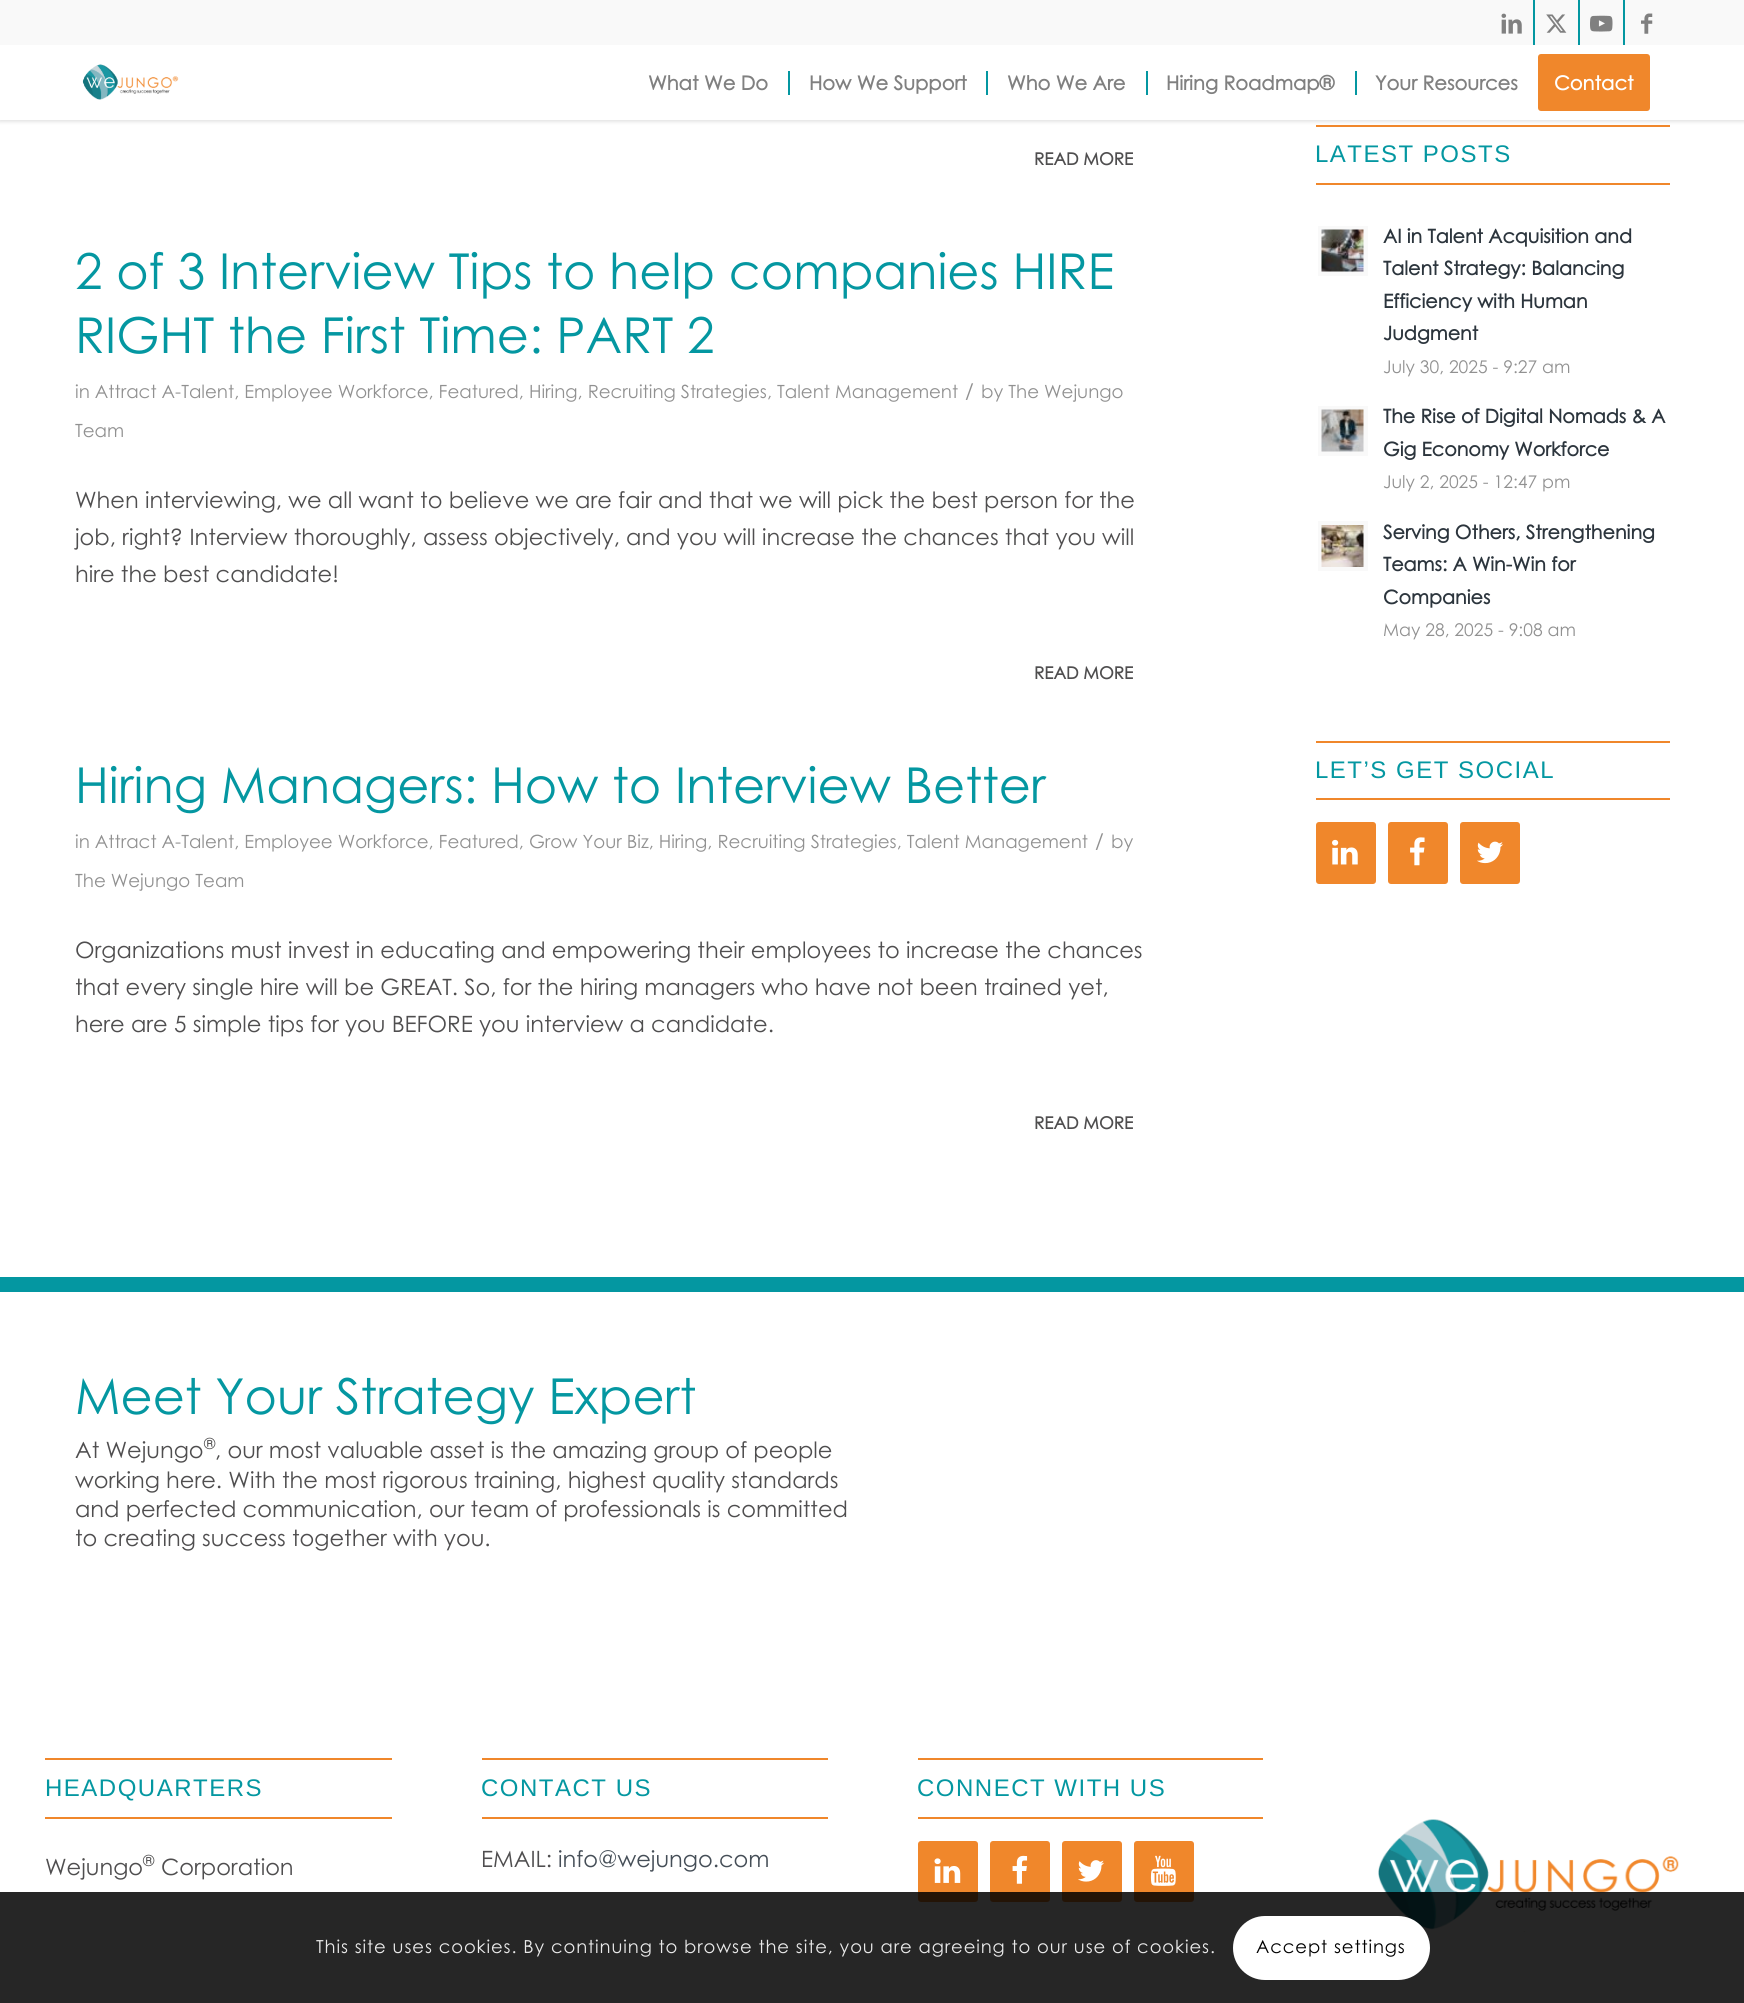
#include <cairo.h>
#include <math.h>
#include <stddef.h>


static void spaced_text(cairo_t *cr, double x, double y, const char *s, double letter, double word) {
    cairo_move_to(cr, x, y);
    while (*s) {
        char ch[5] = {0};
        int n = 0;
        do ch[n++] = *s++; while ((*s & 0xC0) == 0x80);
        cairo_show_text(cr, ch);
        cairo_rel_move_to(cr, letter + word * (*ch == ' '), 0);
    }
}

static void round_rect(cairo_t *cr, double x, double y, double w, double h, double r) {
    cairo_new_sub_path(cr);
    cairo_arc(cr, x + w - r, y + h - r, r, 0, M_PI / 2);
    cairo_arc(cr, x + r, y + h - r, r, M_PI / 2, M_PI);
    cairo_arc(cr, x + r, y + r, r, M_PI, 1.5 * M_PI);
    cairo_arc(cr, x + w - r, y + r, r, 1.5 * M_PI, 2 * M_PI);
    cairo_close_path(cr);
}

static void shadow(cairo_t *cr, double x, double y, double w, double h, double r, double blur, double alpha) {
    cairo_push_group_with_content(cr, CAIRO_CONTENT_ALPHA);
    cairo_set_operator(cr, CAIRO_OPERATOR_SOURCE);
    for (int i = 15; i >= -15 && fmin(w, h) + blur * i / 3 > 0; i -= 2) {
        double e = blur * i / 6;
        cairo_set_source_rgba(cr, 0, 0, 0, alpha * erfc((i - 1) / 8.5) / 2);
        round_rect(cr, x - e, y - e, w + 2 * e, h + 2 * e, fmax(0, fmin(r + e + blur * .6, fmin(w, h) / 2 + e)));
        cairo_fill(cr);
    }
    cairo_pattern_t *soft = cairo_pop_group(cr);
    cairo_mask(cr, soft);
    cairo_pattern_destroy(soft);
}

static void picture(cairo_t *cr, const char *path, double x, double y, double w, double h) {
    cairo_surface_t *image = cairo_image_surface_create_from_png(path);
    cairo_save(cr);
    cairo_set_source_surface(cr, image, x, y);
    cairo_rectangle(cr, x, y, w, h);
    cairo_fill(cr);
    cairo_restore(cr);
    cairo_surface_destroy(image);
}

int main(void) {
    cairo_surface_t *surface = cairo_image_surface_create(CAIRO_FORMAT_RGB24, 1744, 2003);
    cairo_t *cr = cairo_create(surface);
    cairo_font_options_t *options = cairo_font_options_create();
    cairo_font_options_set_hint_metrics(options, CAIRO_HINT_METRICS_OFF);
    cairo_font_options_set_hint_style(options, CAIRO_HINT_STYLE_NONE);
    cairo_set_font_options(cr, options);
    cairo_set_miter_limit(cr, 4);
    cairo_set_source_rgb(cr, 1, 1, 1);
    cairo_paint(cr);
    cairo_set_source_rgb(cr, 0.941, 0.529, 0.169);
    cairo_rectangle(cr, 1316, 125, 354, 2);
    cairo_fill(cr);
    cairo_set_source_rgb(cr, 0, 0, 0);
    shadow(cr, -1, -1, 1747, 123, 0, 1.5, 0.1);
    cairo_set_source_rgb(cr, 0.973, 0.973, 0.973);
    cairo_rectangle(cr, 0, 0, 1744, 45);
    cairo_fill(cr);
    cairo_set_source_rgb(cr, 0.016, 0.592, 0.631);
    cairo_rectangle(cr, 1533, 0, 2, 45);
    cairo_fill(cr);
    picture(cr, "img1.png", 1501, 13, 21, 21);
    cairo_rectangle(cr, 1578, 0, 2, 45);
    cairo_fill(cr);
    picture(cr, "img2.png", 1546, 14, 21, 19);
    cairo_rectangle(cr, 1623, 0, 2, 45);
    cairo_fill(cr);
    picture(cr, "img3.png", 1590, 15, 23, 17);
    picture(cr, "img4.png", 1641, 13, 12, 21);
    cairo_set_source_rgb(cr, 1, 1, 1);
    cairo_rectangle(cr, 0, 45, 1744, 75);
    cairo_fill(cr);
    picture(cr, "img5.png", 82, 64, 97, 36);
    cairo_select_font_face(cr, "Century Gothic", CAIRO_FONT_SLANT_NORMAL, CAIRO_FONT_WEIGHT_BOLD);
    cairo_set_font_size(cr, 19.5);
    cairo_set_source_rgb(cr, 0.502, 0.502, 0.502);
    cairo_move_to(cr, 648, 90);
    cairo_show_text(cr, "What We Do");
    cairo_move_to(cr, 809, 90);
    cairo_show_text(cr, "How We Support");
    cairo_set_source_rgb(cr, 0.016, 0.592, 0.631);
    cairo_rectangle(cr, 788, 71, 2, 24);
    cairo_fill(cr);
    cairo_set_source_rgb(cr, 0.502, 0.502, 0.502);
    cairo_move_to(cr, 1007, 90);
    cairo_show_text(cr, "Who We Are");
    cairo_set_source_rgb(cr, 0.016, 0.592, 0.631);
    cairo_rectangle(cr, 986, 71, 2, 24);
    cairo_fill(cr);
    cairo_set_source_rgb(cr, 0.502, 0.502, 0.502);
    cairo_move_to(cr, 1166, 90);
    cairo_show_text(cr, "Hiring Roadmap®");
    cairo_set_source_rgb(cr, 0.016, 0.592, 0.631);
    cairo_rectangle(cr, 1146, 71, 2, 24);
    cairo_fill(cr);
    cairo_set_source_rgb(cr, 0.502, 0.502, 0.502);
    cairo_move_to(cr, 1375, 90);
    cairo_show_text(cr, "Your Resources");
    cairo_set_source_rgb(cr, 0.016, 0.592, 0.631);
    cairo_rectangle(cr, 1355, 71, 2, 24);
    cairo_fill(cr);
    cairo_set_source_rgb(cr, 0.941, 0.529, 0.169);
    round_rect(cr, 1539.5, 55.5, 109, 54, 1.5);
    cairo_fill_preserve(cr);
    cairo_set_line_width(cr, 3);
    cairo_stroke(cr);
    cairo_set_source_rgb(cr, 1, 1, 1);
    cairo_move_to(cr, 1554, 90);
    cairo_show_text(cr, "Contact");
    cairo_set_font_size(cr, 17);
    cairo_set_source_rgb(cr, 0.31, 0.306, 0.31);
    cairo_move_to(cr, 1034, 165);
    cairo_show_text(cr, "READ MORE");
    cairo_select_font_face(cr, "Century Gothic", CAIRO_FONT_SLANT_NORMAL, CAIRO_FONT_WEIGHT_NORMAL);
    cairo_set_font_size(cr, 49.5);
    cairo_set_source_rgb(cr, 0.016, 0.592, 0.631);
    cairo_move_to(cr, 75, 289);
    cairo_show_text(cr, "2 of 3 Interview Tips to help companies HIRE");
    cairo_move_to(cr, 75, 353);
    cairo_show_text(cr, "RIGHT the First Time: PART 2");
    cairo_set_font_size(cr, 18.23);
    cairo_set_source_rgb(cr, 0.569, 0.569, 0.569);
    cairo_move_to(cr, 75, 398);
    cairo_show_text(cr, "in Attract A-Talent, Employee Workforce, Featured, Hiring, Recruiting Strategies, Talent Management");
    cairo_set_font_size(cr, 20);
    cairo_move_to(cr, 965, 398);
    cairo_show_text(cr, "/");
    cairo_set_font_size(cr, 18.23);
    cairo_move_to(cr, 981, 398);
    cairo_show_text(cr, "by The Wejungo");
    cairo_move_to(cr, 75, 437);
    cairo_show_text(cr, "Team");
    cairo_set_font_size(cr, 22.5);
    cairo_set_source_rgb(cr, 0.31, 0.306, 0.31);
    cairo_move_to(cr, 75, 508);
    cairo_show_text(cr, "When interviewing, we all want to believe we are fair and that we will pick the best person for the");
    cairo_move_to(cr, 75, 545);
    cairo_show_text(cr, "job, right? Interview thoroughly, assess objectively, and you will increase the chances that you will");
    cairo_move_to(cr, 75, 582);
    cairo_show_text(cr, "hire the best candidate!");
    cairo_select_font_face(cr, "Century Gothic", CAIRO_FONT_SLANT_NORMAL, CAIRO_FONT_WEIGHT_BOLD);
    cairo_set_font_size(cr, 17);
    cairo_move_to(cr, 1034, 679);
    cairo_show_text(cr, "READ MORE");
    cairo_select_font_face(cr, "Century Gothic", CAIRO_FONT_SLANT_NORMAL, CAIRO_FONT_WEIGHT_NORMAL);
    cairo_set_font_size(cr, 49.5);
    cairo_set_source_rgb(cr, 0.016, 0.592, 0.631);
    cairo_move_to(cr, 75, 803);
    cairo_show_text(cr, "Hiring Managers: How to Interview Better");
    cairo_set_font_size(cr, 18.23);
    cairo_set_source_rgb(cr, 0.569, 0.569, 0.569);
    cairo_move_to(cr, 75, 848);
    cairo_show_text(cr, "in Attract A-Talent, Employee Workforce, Featured, Grow Your Biz, Hiring, Recruiting Strategies, Talent Management");
    cairo_set_font_size(cr, 20);
    cairo_move_to(cr, 1095, 848);
    cairo_show_text(cr, "/");
    cairo_set_font_size(cr, 18.23);
    cairo_move_to(cr, 1111, 848);
    cairo_show_text(cr, "by");
    cairo_move_to(cr, 75, 887);
    cairo_show_text(cr, "The Wejungo Team");
    cairo_set_font_size(cr, 22.5);
    cairo_set_source_rgb(cr, 0.31, 0.306, 0.31);
    cairo_move_to(cr, 75, 958);
    cairo_show_text(cr, "Organizations must invest in educating and empowering their employees to increase the chances");
    cairo_move_to(cr, 75, 995);
    cairo_show_text(cr, "that every single hire will be GREAT. So, for the hiring managers who have not been trained yet,");
    cairo_move_to(cr, 75, 1032);
    cairo_show_text(cr, "here are 5 simple tips for you BEFORE you interview a candidate.");
    cairo_select_font_face(cr, "Century Gothic", CAIRO_FONT_SLANT_NORMAL, CAIRO_FONT_WEIGHT_BOLD);
    cairo_set_font_size(cr, 17);
    cairo_move_to(cr, 1034, 1129);
    cairo_show_text(cr, "READ MORE");
    cairo_set_source_rgb(cr, 0.941, 0.529, 0.169);
    cairo_rectangle(cr, 1316, 183, 354, 2);
    cairo_fill(cr);
    cairo_select_font_face(cr, "Liberation Sans", CAIRO_FONT_SLANT_NORMAL, CAIRO_FONT_WEIGHT_NORMAL);
    cairo_set_font_size(cr, 24);
    cairo_set_source_rgb(cr, 0.016, 0.592, 0.631);
    spaced_text(cr, 1315, 162, "LATEST POSTS", 1.5, 0);
    cairo_set_source_rgb(cr, 0.973, 0.973, 0.973);
    cairo_rectangle(cr, 1318, 226, 50, 50);
    cairo_fill(cr);
    picture(cr, "img6.png", 1321, 229, 43, 43);
    cairo_select_font_face(cr, "Century Gothic", CAIRO_FONT_SLANT_NORMAL, CAIRO_FONT_WEIGHT_BOLD);
    cairo_set_font_size(cr, 19.1);
    cairo_set_source_rgb(cr, 0.173, 0.208, 0.239);
    cairo_move_to(cr, 1383, 243);
    cairo_show_text(cr, "AI in Talent Acquisition and");
    cairo_move_to(cr, 1383, 275);
    cairo_show_text(cr, "Talent Strategy: Balancing");
    cairo_move_to(cr, 1383, 308);
    cairo_show_text(cr, "Efficiency with Human");
    cairo_move_to(cr, 1383, 340);
    cairo_show_text(cr, "Judgment");
    cairo_select_font_face(cr, "Century Gothic", CAIRO_FONT_SLANT_NORMAL, CAIRO_FONT_WEIGHT_NORMAL);
    cairo_set_font_size(cr, 17.5);
    cairo_set_source_rgb(cr, 0.569, 0.569, 0.569);
    cairo_move_to(cr, 1383, 373);
    cairo_show_text(cr, "July 30, 2025 - 9:27 am");
    cairo_set_source_rgb(cr, 0.973, 0.973, 0.973);
    cairo_rectangle(cr, 1318, 406, 50, 50);
    cairo_fill(cr);
    picture(cr, "img7.png", 1321, 409, 43, 43);
    cairo_select_font_face(cr, "Century Gothic", CAIRO_FONT_SLANT_NORMAL, CAIRO_FONT_WEIGHT_BOLD);
    cairo_set_font_size(cr, 19.1);
    cairo_set_source_rgb(cr, 0.173, 0.208, 0.239);
    cairo_move_to(cr, 1383, 423);
    cairo_show_text(cr, "The Rise of Digital Nomads & A");
    cairo_move_to(cr, 1383, 456);
    cairo_show_text(cr, "Gig Economy Workforce");
    cairo_select_font_face(cr, "Century Gothic", CAIRO_FONT_SLANT_NORMAL, CAIRO_FONT_WEIGHT_NORMAL);
    cairo_set_font_size(cr, 17.5);
    cairo_set_source_rgb(cr, 0.569, 0.569, 0.569);
    cairo_move_to(cr, 1383, 488);
    cairo_show_text(cr, "July 2, 2025 - 12:47 pm");
    cairo_set_source_rgb(cr, 0.973, 0.973, 0.973);
    cairo_rectangle(cr, 1318, 521, 50, 50);
    cairo_fill(cr);
    picture(cr, "img8.png", 1321, 525, 43, 42);
    cairo_select_font_face(cr, "Century Gothic", CAIRO_FONT_SLANT_NORMAL, CAIRO_FONT_WEIGHT_BOLD);
    cairo_set_font_size(cr, 19.1);
    cairo_set_source_rgb(cr, 0.173, 0.208, 0.239);
    cairo_move_to(cr, 1383, 539);
    cairo_show_text(cr, "Serving Others, Strengthening");
    cairo_move_to(cr, 1383, 571);
    cairo_show_text(cr, "Teams: A Win-Win for");
    cairo_move_to(cr, 1383, 604);
    cairo_show_text(cr, "Companies");
    cairo_select_font_face(cr, "Century Gothic", CAIRO_FONT_SLANT_NORMAL, CAIRO_FONT_WEIGHT_NORMAL);
    cairo_set_font_size(cr, 17.5);
    cairo_set_source_rgb(cr, 0.569, 0.569, 0.569);
    cairo_move_to(cr, 1383, 636);
    cairo_show_text(cr, "May 28, 2025 - 9:08 am");
    cairo_set_source_rgb(cr, 0.941, 0.529, 0.169);
    cairo_rectangle(cr, 1316, 741, 354, 2);
    cairo_fill(cr);
    cairo_rectangle(cr, 1316, 798, 354, 2);
    cairo_fill(cr);
    cairo_select_font_face(cr, "Liberation Sans", CAIRO_FONT_SLANT_NORMAL, CAIRO_FONT_WEIGHT_NORMAL);
    cairo_set_font_size(cr, 24);
    cairo_set_source_rgb(cr, 0.016, 0.592, 0.631);
    spaced_text(cr, 1315, 778, "LET’S GET SOCIAL", 1.5, 0);
    cairo_set_source_rgb(cr, 0.941, 0.529, 0.169);
    round_rect(cr, 1316, 822, 60, 62, 3);
    cairo_fill(cr);
    picture(cr, "img9.png", 1332, 839, 26, 26);
    round_rect(cr, 1388, 822, 60, 62, 3);
    cairo_fill(cr);
    picture(cr, "img10.png", 1410, 837, 15, 29);
    round_rect(cr, 1460, 822, 60, 62, 3);
    cairo_fill(cr);
    picture(cr, "img11.png", 1477, 841, 26, 23);
    cairo_set_source_rgb(cr, 0.016, 0.592, 0.631);
    cairo_rectangle(cr, 0, 1277, 1744, 15);
    cairo_fill(cr);
    cairo_select_font_face(cr, "Century Gothic", CAIRO_FONT_SLANT_NORMAL, CAIRO_FONT_WEIGHT_NORMAL);
    cairo_set_font_size(cr, 49.5);
    cairo_move_to(cr, 75, 1414);
    cairo_show_text(cr, "Meet Your Strategy Expert");
    cairo_set_font_size(cr, 22.5);
    cairo_set_source_rgb(cr, 0.31, 0.306, 0.31);
    cairo_move_to(cr, 75, 1458);
    cairo_show_text(cr, "At Wejungo");
    cairo_set_font_size(cr, 15);
    cairo_move_to(cr, 204, 1449);
    cairo_show_text(cr, "®");
    cairo_set_font_size(cr, 22.5);
    cairo_move_to(cr, 215, 1458);
    cairo_show_text(cr, ", our most valuable asset is the amazing group of people");
    cairo_move_to(cr, 75, 1488);
    cairo_show_text(cr, "working here. With the most rigorous training, highest quality standards");
    cairo_move_to(cr, 75, 1517);
    cairo_show_text(cr, "and perfected communication, our team of professionals is committed");
    cairo_move_to(cr, 75, 1546);
    cairo_show_text(cr, "to creating success together with you.");
    cairo_set_source_rgb(cr, 0.941, 0.529, 0.169);
    cairo_rectangle(cr, 45, 1758, 347, 2);
    cairo_fill(cr);
    cairo_rectangle(cr, 45, 1817, 347, 2);
    cairo_fill(cr);
    cairo_select_font_face(cr, "Liberation Sans", CAIRO_FONT_SLANT_NORMAL, CAIRO_FONT_WEIGHT_NORMAL);
    cairo_set_font_size(cr, 24);
    cairo_set_source_rgb(cr, 0.016, 0.592, 0.631);
    spaced_text(cr, 45, 1796, "HEADQUARTERS", 1.5, 0);
    cairo_select_font_face(cr, "Century Gothic", CAIRO_FONT_SLANT_NORMAL, CAIRO_FONT_WEIGHT_NORMAL);
    cairo_set_font_size(cr, 22.5);
    cairo_set_source_rgb(cr, 0.31, 0.306, 0.31);
    cairo_move_to(cr, 45, 1875);
    cairo_show_text(cr, "Wejungo");
    cairo_set_font_size(cr, 15);
    cairo_move_to(cr, 143, 1866);
    cairo_show_text(cr, "®");
    cairo_set_font_size(cr, 22.5);
    cairo_move_to(cr, 161, 1875);
    cairo_show_text(cr, "Corporation");
    cairo_set_source_rgb(cr, 0.941, 0.529, 0.169);
    cairo_rectangle(cr, 482, 1758, 346, 2);
    cairo_fill(cr);
    cairo_rectangle(cr, 482, 1817, 346, 2);
    cairo_fill(cr);
    cairo_select_font_face(cr, "Liberation Sans", CAIRO_FONT_SLANT_NORMAL, CAIRO_FONT_WEIGHT_NORMAL);
    cairo_set_font_size(cr, 24);
    cairo_set_source_rgb(cr, 0.016, 0.592, 0.631);
    spaced_text(cr, 481, 1796, "CONTACT US", 1.5, 0);
    cairo_select_font_face(cr, "Century Gothic", CAIRO_FONT_SLANT_NORMAL, CAIRO_FONT_WEIGHT_NORMAL);
    cairo_set_font_size(cr, 22.5);
    cairo_set_source_rgb(cr, 0.31, 0.306, 0.31);
    cairo_move_to(cr, 481, 1867);
    cairo_show_text(cr, "EMAIL:");
    cairo_set_source_rgb(cr, 0.271, 0.306, 0.341);
    cairo_move_to(cr, 558, 1867);
    cairo_show_text(cr, "info@wejungo.com");
    cairo_set_source_rgb(cr, 0.941, 0.529, 0.169);
    cairo_rectangle(cr, 918, 1758, 345, 2);
    cairo_fill(cr);
    cairo_rectangle(cr, 918, 1817, 345, 2);
    cairo_fill(cr);
    cairo_select_font_face(cr, "Liberation Sans", CAIRO_FONT_SLANT_NORMAL, CAIRO_FONT_WEIGHT_NORMAL);
    cairo_set_font_size(cr, 24);
    cairo_set_source_rgb(cr, 0.016, 0.592, 0.631);
    spaced_text(cr, 917, 1796, "CONNECT WITH US", 1.5, 0);
    cairo_set_source_rgb(cr, 0.941, 0.529, 0.169);
    round_rect(cr, 918, 1841, 60, 61, 3);
    cairo_fill(cr);
    picture(cr, "img12.png", 934, 1858, 27, 25);
    round_rect(cr, 990, 1841, 60, 61, 3);
    cairo_fill(cr);
    picture(cr, "img13.png", 1012, 1855, 16, 29);
    round_rect(cr, 1062, 1841, 60, 61, 3);
    cairo_fill(cr);
    picture(cr, "img14.png", 1078, 1860, 26, 22);
    round_rect(cr, 1134, 1841, 60, 61, 3);
    cairo_fill(cr);
    picture(cr, "img15.png", 1150, 1855, 26, 31);
    picture(cr, "img16.png", 1378, 1819, 301, 113);
    cairo_set_source_rgba(cr, 0, 0, 0, 0.85);
    cairo_rectangle(cr, 0, 1892, 1744, 111);
    cairo_fill(cr);
    cairo_select_font_face(cr, "Century Gothic", CAIRO_FONT_SLANT_NORMAL, CAIRO_FONT_WEIGHT_NORMAL);
    cairo_set_font_size(cr, 18);
    cairo_set_source_rgb(cr, 0.914, 0.914, 0.914);
    spaced_text(cr, 316, 1953, "This site uses cookies. By continuing to browse the site, you are agreeing to our use of cookies.", 0.9, 0);
    cairo_set_source_rgb(cr, 1, 1, 1);
    round_rect(cr, 1233, 1916, 197, 64, 32);
    cairo_fill(cr);
    cairo_set_source_rgb(cr, 0, 0, 0);
    spaced_text(cr, 1256, 1953, "Accept settings", 0.9, 0);
    cairo_surface_write_to_png(surface, "page.png");
    cairo_font_options_destroy(options);
    cairo_destroy(cr);
    cairo_surface_destroy(surface);
    return 0;
}
